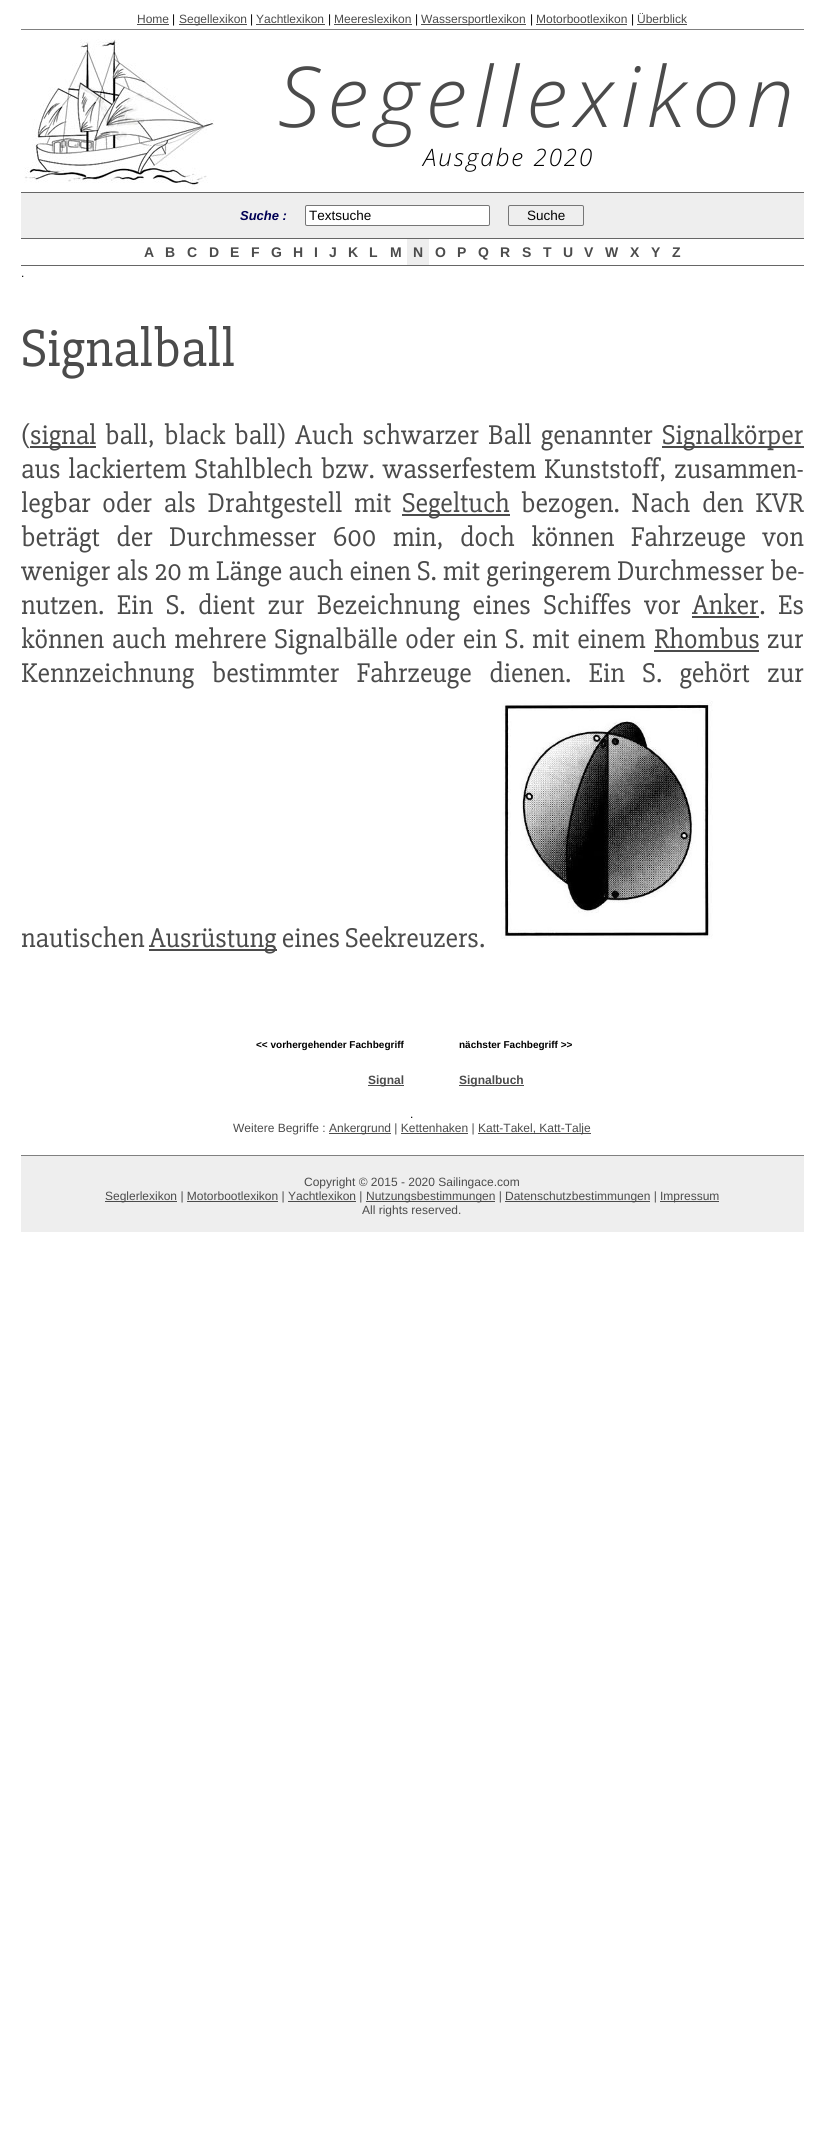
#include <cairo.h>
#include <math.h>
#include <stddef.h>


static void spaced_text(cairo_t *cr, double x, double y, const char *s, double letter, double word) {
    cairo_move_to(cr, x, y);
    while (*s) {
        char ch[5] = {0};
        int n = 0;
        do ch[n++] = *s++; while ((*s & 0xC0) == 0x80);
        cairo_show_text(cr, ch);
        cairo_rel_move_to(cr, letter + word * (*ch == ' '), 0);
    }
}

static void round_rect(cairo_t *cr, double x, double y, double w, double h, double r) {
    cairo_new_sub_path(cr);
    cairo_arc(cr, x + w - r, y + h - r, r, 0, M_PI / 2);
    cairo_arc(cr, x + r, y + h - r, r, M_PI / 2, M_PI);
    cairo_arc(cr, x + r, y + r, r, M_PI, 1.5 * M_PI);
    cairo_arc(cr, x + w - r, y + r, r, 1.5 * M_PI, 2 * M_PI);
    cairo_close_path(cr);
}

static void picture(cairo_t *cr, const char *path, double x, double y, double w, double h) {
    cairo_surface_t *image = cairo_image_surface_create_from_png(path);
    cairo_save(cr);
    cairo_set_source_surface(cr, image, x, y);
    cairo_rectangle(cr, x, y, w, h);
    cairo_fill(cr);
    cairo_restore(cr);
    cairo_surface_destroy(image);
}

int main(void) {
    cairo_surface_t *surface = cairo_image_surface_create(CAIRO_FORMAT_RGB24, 824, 2137);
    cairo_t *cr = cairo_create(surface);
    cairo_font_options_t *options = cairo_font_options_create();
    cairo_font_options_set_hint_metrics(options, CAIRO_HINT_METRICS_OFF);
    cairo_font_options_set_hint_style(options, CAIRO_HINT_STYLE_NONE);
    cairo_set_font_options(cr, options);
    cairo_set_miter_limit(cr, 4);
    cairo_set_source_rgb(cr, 1, 1, 1);
    cairo_paint(cr);
    cairo_set_source_rgb(cr, 0.502, 0.502, 0.502);
    cairo_rectangle(cr, 21, 29, 783, 1);
    cairo_fill(cr);
    cairo_select_font_face(cr, "Liberation Sans", CAIRO_FONT_SLANT_NORMAL, CAIRO_FONT_WEIGHT_NORMAL);
    cairo_set_font_size(cr, 12);
    cairo_set_source_rgb(cr, 0.294, 0.294, 0.294);
    cairo_move_to(cr, 137, 23);
    cairo_show_text(cr, "Home");
    cairo_rectangle(cr, 137, 24, 32, 1);
    cairo_fill(cr);
    cairo_set_source_rgb(cr, 0, 0, 0);
    cairo_move_to(cr, 172, 23);
    cairo_show_text(cr, "|");
    cairo_set_source_rgb(cr, 0.294, 0.294, 0.294);
    cairo_rectangle(cr, 179, 24, 68, 1);
    cairo_fill(cr);
    cairo_move_to(cr, 179, 23);
    cairo_show_text(cr, "Segellexikon");
    cairo_set_source_rgb(cr, 0, 0, 0);
    cairo_move_to(cr, 250, 23);
    cairo_show_text(cr, "|");
    cairo_set_source_rgb(cr, 0.294, 0.294, 0.294);
    cairo_move_to(cr, 256, 23);
    cairo_show_text(cr, "Yachtlexikon");
    cairo_rectangle(cr, 256, 24, 69, 1);
    cairo_fill(cr);
    cairo_set_source_rgb(cr, 0, 0, 0);
    cairo_move_to(cr, 328, 23);
    cairo_show_text(cr, "|");
    cairo_set_source_rgb(cr, 0.294, 0.294, 0.294);
    cairo_move_to(cr, 334, 23);
    cairo_show_text(cr, "Meereslexikon");
    cairo_rectangle(cr, 334, 24, 78, 1);
    cairo_fill(cr);
    cairo_set_source_rgb(cr, 0, 0, 0);
    cairo_move_to(cr, 415, 23);
    cairo_show_text(cr, "|");
    cairo_set_source_rgb(cr, 0.294, 0.294, 0.294);
    cairo_rectangle(cr, 421, 24, 105, 1);
    cairo_fill(cr);
    cairo_move_to(cr, 421, 23);
    cairo_show_text(cr, "Wassersportlexikon");
    cairo_set_source_rgb(cr, 0, 0, 0);
    cairo_move_to(cr, 530, 23);
    cairo_show_text(cr, "|");
    cairo_set_source_rgb(cr, 0.294, 0.294, 0.294);
    cairo_move_to(cr, 536, 23);
    cairo_show_text(cr, "Motorbootlexikon");
    cairo_rectangle(cr, 536, 24, 91, 1);
    cairo_fill(cr);
    cairo_set_source_rgb(cr, 0, 0, 0);
    cairo_move_to(cr, 631, 23);
    cairo_show_text(cr, "|");
    cairo_set_source_rgb(cr, 0.294, 0.294, 0.294);
    cairo_move_to(cr, 637, 23);
    cairo_show_text(cr, "Überblick");
    cairo_rectangle(cr, 637, 24, 50, 1);
    cairo_fill(cr);
    picture(cr, "img1.png", 24, 39, 190, 150);
    cairo_select_font_face(cr, "Open Sans Light", CAIRO_FONT_SLANT_ITALIC, CAIRO_FONT_WEIGHT_NORMAL);
    cairo_set_font_size(cr, 84);
    spaced_text(cr, 278, 127, "Segellexikon", 7, 0);
    cairo_set_font_size(cr, 24);
    cairo_set_source_rgb(cr, 0, 0, 0);
    spaced_text(cr, 423, 166, "Ausgabe 2020", 2, 0);
    cairo_set_source_rgb(cr, 0.4, 0.4, 0.4);
    cairo_rectangle(cr, 21, 192, 783, 1);
    cairo_fill(cr);
    cairo_set_source_rgb(cr, 0.933, 0.933, 0.933);
    cairo_rectangle(cr, 21, 193, 783, 45);
    cairo_fill(cr);
    cairo_select_font_face(cr, "Liberation Sans", CAIRO_FONT_SLANT_ITALIC, CAIRO_FONT_WEIGHT_BOLD);
    cairo_set_font_size(cr, 13);
    cairo_set_source_rgb(cr, 0, 0, 0.333);
    cairo_move_to(cr, 240, 220);
    cairo_show_text(cr, "Suche :");
    cairo_set_source_rgb(cr, 1, 1, 1);
    round_rect(cr, 305.5, 205.5, 184, 20, 1.5);
    cairo_fill_preserve(cr);
    cairo_set_source_rgb(cr, 0.463, 0.463, 0.463);
    cairo_set_line_width(cr, 1);
    cairo_stroke(cr);
    cairo_select_font_face(cr, "Liberation Sans", CAIRO_FONT_SLANT_NORMAL, CAIRO_FONT_WEIGHT_NORMAL);
    cairo_set_font_size(cr, 13.5);
    cairo_set_source_rgb(cr, 0, 0, 0);
    cairo_move_to(cr, 309, 220);
    cairo_show_text(cr, "Textsuche");
    round_rect(cr, 508.5, 205.5, 75, 20, 1.5);
    cairo_set_source_rgb(cr, 0.463, 0.463, 0.463);
    cairo_stroke(cr);
    cairo_set_source_rgb(cr, 0, 0, 0);
    cairo_move_to(cr, 527, 220);
    cairo_show_text(cr, "Suche");
    cairo_set_source_rgb(cr, 0.4, 0.4, 0.4);
    cairo_rectangle(cr, 21, 238, 783, 1);
    cairo_fill(cr);
    cairo_rectangle(cr, 21, 265, 783, 1);
    cairo_fill(cr);
    cairo_select_font_face(cr, "Liberation Sans", CAIRO_FONT_SLANT_NORMAL, CAIRO_FONT_WEIGHT_BOLD);
    cairo_set_font_size(cr, 14);
    cairo_set_source_rgb(cr, 0.294, 0.294, 0.294);
    cairo_move_to(cr, 144, 257);
    cairo_show_text(cr, "A");
    cairo_move_to(cr, 165, 257);
    cairo_show_text(cr, "B");
    cairo_move_to(cr, 187, 257);
    cairo_show_text(cr, "C");
    cairo_move_to(cr, 209, 257);
    cairo_show_text(cr, "D");
    cairo_move_to(cr, 230, 257);
    cairo_show_text(cr, "E");
    cairo_move_to(cr, 251, 257);
    cairo_show_text(cr, "F");
    cairo_move_to(cr, 271, 257);
    cairo_show_text(cr, "G");
    cairo_move_to(cr, 293, 257);
    cairo_show_text(cr, "H");
    cairo_move_to(cr, 314, 257);
    cairo_show_text(cr, "I");
    cairo_move_to(cr, 329, 257);
    cairo_show_text(cr, "J");
    cairo_move_to(cr, 348, 257);
    cairo_show_text(cr, "K");
    cairo_move_to(cr, 369, 257);
    cairo_show_text(cr, "L");
    cairo_move_to(cr, 390, 257);
    cairo_show_text(cr, "M");
    cairo_set_source_rgb(cr, 0.933, 0.933, 0.933);
    cairo_rectangle(cr, 407, 239, 22, 26);
    cairo_fill(cr);
    cairo_set_source_rgb(cr, 0.294, 0.294, 0.294);
    cairo_move_to(cr, 413, 257);
    cairo_show_text(cr, "N");
    cairo_move_to(cr, 435, 257);
    cairo_show_text(cr, "O");
    cairo_move_to(cr, 457, 257);
    cairo_show_text(cr, "P");
    cairo_move_to(cr, 478, 257);
    cairo_show_text(cr, "Q");
    cairo_move_to(cr, 500, 257);
    cairo_show_text(cr, "R");
    cairo_move_to(cr, 522, 257);
    cairo_show_text(cr, "S");
    cairo_move_to(cr, 543, 257);
    cairo_show_text(cr, "T");
    cairo_move_to(cr, 563, 257);
    cairo_show_text(cr, "U");
    cairo_move_to(cr, 584, 257);
    cairo_show_text(cr, "V");
    cairo_move_to(cr, 605, 257);
    cairo_show_text(cr, "W");
    cairo_move_to(cr, 630, 257);
    cairo_show_text(cr, "X");
    cairo_move_to(cr, 651, 257);
    cairo_show_text(cr, "Y");
    cairo_move_to(cr, 672, 257);
    cairo_show_text(cr, "Z");
    cairo_select_font_face(cr, "Liberation Sans", CAIRO_FONT_SLANT_NORMAL, CAIRO_FONT_WEIGHT_NORMAL);
    cairo_set_font_size(cr, 12);
    cairo_set_source_rgb(cr, 0, 0, 0);
    cairo_move_to(cr, 21, 277);
    cairo_show_text(cr, ".");
    cairo_select_font_face(cr, "Slabo 27px", CAIRO_FONT_SLANT_NORMAL, CAIRO_FONT_WEIGHT_NORMAL);
    cairo_set_font_size(cr, 54);
    cairo_set_source_rgb(cr, 0.294, 0.294, 0.294);
    cairo_move_to(cr, 21, 366);
    cairo_show_text(cr, "Signalball");
    cairo_set_font_size(cr, 28);
    cairo_move_to(cr, 21, 444);
    cairo_show_text(cr, "(");
    cairo_rectangle(cr, 30, 446, 66, 2);
    cairo_fill(cr);
    cairo_move_to(cr, 30, 444);
    cairo_show_text(cr, "signal");
    spaced_text(cr, 105, 444, "ball, black ball) Auch schwarzer Ball genannter", 0, 4);
    cairo_rectangle(cr, 662, 446, 142, 2);
    cairo_fill(cr);
    cairo_move_to(cr, 662, 444);
    cairo_show_text(cr, "Signalkörper");
    spaced_text(cr, 21, 478, "aus lackiertem Stahlblech bzw. wasserfestem Kunststoff, zusammen-", 0, 2.75);
    spaced_text(cr, 21, 512, "legbar oder als Drahtgestell mit", 0, 6.5);
    cairo_rectangle(cr, 402, 514, 108, 2);
    cairo_fill(cr);
    cairo_move_to(cr, 402, 512);
    cairo_show_text(cr, "Segeltuch");
    spaced_text(cr, 521, 512, "bezogen. Nach den KVR", 0, 6.5);
    spaced_text(cr, 21, 546, "beträgt der Durchmesser 600 min, doch können Fahrzeuge von", 0, 11.25);
    spaced_text(cr, 21, 580, "weniger als 20 m Länge auch einen S. mit geringerem Durchmesser be-", 0, 1);
    spaced_text(cr, 21, 614, "nutzen. Ein S. dient zur Bezeichnung eines Schiffes vor", 0, 7.5);
    cairo_move_to(cr, 692, 614);
    cairo_show_text(cr, "Anker");
    cairo_rectangle(cr, 692, 616, 67, 2);
    cairo_fill(cr);
    spaced_text(cr, 759, 614, ". Es", 0, 7.5);
    spaced_text(cr, 21, 648, "können auch mehrere Signalbälle oder ein S. mit einem", 0, 2.5);
    cairo_move_to(cr, 654, 648);
    cairo_show_text(cr, "Rhombus");
    cairo_rectangle(cr, 654, 650, 105, 2);
    cairo_fill(cr);
    cairo_move_to(cr, 767, 648);
    cairo_show_text(cr, "zur");
    spaced_text(cr, 21, 682, "Kennzeichnung bestimmter Fahrzeuge dienen. Ein S. gehört zur", 0, 12.25);
    cairo_move_to(cr, 21, 947);
    cairo_show_text(cr, "nautischen");
    cairo_rectangle(cr, 149, 949, 128, 2);
    cairo_fill(cr);
    cairo_move_to(cr, 149, 947);
    cairo_show_text(cr, "Ausrüstung eines Seekreuzers.");
    picture(cr, "img2.png", 501, 700, 212, 239);
    cairo_select_font_face(cr, "Liberation Sans", CAIRO_FONT_SLANT_NORMAL, CAIRO_FONT_WEIGHT_BOLD);
    cairo_set_font_size(cr, 10);
    cairo_set_source_rgb(cr, 0, 0, 0);
    cairo_move_to(cr, 256, 1048);
    cairo_show_text(cr, "<< vorhergehender Fachbegriff");
    cairo_move_to(cr, 459, 1048);
    cairo_show_text(cr, "nächster Fachbegriff >>");
    cairo_set_source_rgb(cr, 0.294, 0.294, 0.294);
    cairo_rectangle(cr, 368, 1085, 36, 1);
    cairo_fill(cr);
    cairo_set_font_size(cr, 12);
    cairo_move_to(cr, 368, 1084);
    cairo_show_text(cr, "Signal");
    cairo_rectangle(cr, 459, 1085, 65, 1);
    cairo_fill(cr);
    cairo_move_to(cr, 459, 1084);
    cairo_show_text(cr, "Signalbuch");
    cairo_select_font_face(cr, "Liberation Sans", CAIRO_FONT_SLANT_NORMAL, CAIRO_FONT_WEIGHT_NORMAL);
    cairo_set_source_rgb(cr, 0, 0, 0);
    cairo_move_to(cr, 410, 1118);
    cairo_show_text(cr, ".");
    cairo_set_source_rgb(cr, 0.294, 0.294, 0.294);
    cairo_move_to(cr, 233, 1132);
    cairo_show_text(cr, "Weitere Begriffe :");
    cairo_rectangle(cr, 329, 1133, 62, 1);
    cairo_fill(cr);
    cairo_move_to(cr, 329, 1132);
    cairo_show_text(cr, "Ankergrund | Kettenhaken |");
    cairo_rectangle(cr, 478, 1133, 113, 1);
    cairo_fill(cr);
    cairo_move_to(cr, 478, 1132);
    cairo_show_text(cr, "Katt-Takel, Katt-Talje");
    cairo_rectangle(cr, 401, 1133, 67, 1);
    cairo_fill(cr);
    cairo_set_source_rgb(cr, 0.933, 0.933, 0.933);
    cairo_rectangle(cr, 21, 1156, 783, 76);
    cairo_fill(cr);
    cairo_set_source_rgb(cr, 0.502, 0.502, 0.502);
    cairo_rectangle(cr, 21, 1155, 783, 1);
    cairo_fill(cr);
    cairo_set_source_rgb(cr, 0.294, 0.294, 0.294);
    cairo_move_to(cr, 304, 1186);
    cairo_show_text(cr, "Copyright © 2015 - 2020 Sailingace.com");
    cairo_rectangle(cr, 105, 1201, 72, 1);
    cairo_fill(cr);
    cairo_move_to(cr, 105, 1200);
    cairo_show_text(cr, "Seglerlexikon | Motorbootlexikon | Yachtlexikon |");
    cairo_rectangle(cr, 366, 1201, 129, 1);
    cairo_fill(cr);
    cairo_move_to(cr, 366, 1200);
    cairo_show_text(cr, "Nutzungsbestimmungen |");
    cairo_rectangle(cr, 505, 1201, 145, 1);
    cairo_fill(cr);
    cairo_move_to(cr, 505, 1200);
    cairo_show_text(cr, "Datenschutzbestimmungen |");
    cairo_rectangle(cr, 660, 1201, 59, 1);
    cairo_fill(cr);
    cairo_move_to(cr, 660, 1200);
    cairo_show_text(cr, "Impressum");
    cairo_rectangle(cr, 187, 1201, 91, 1);
    cairo_fill(cr);
    cairo_rectangle(cr, 288, 1201, 68, 1);
    cairo_fill(cr);
    cairo_move_to(cr, 362, 1214);
    cairo_show_text(cr, "All rights reserved.");
    cairo_surface_write_to_png(surface, "page.png");
    cairo_font_options_destroy(options);
    cairo_destroy(cr);
    cairo_surface_destroy(surface);
    return 0;
}
